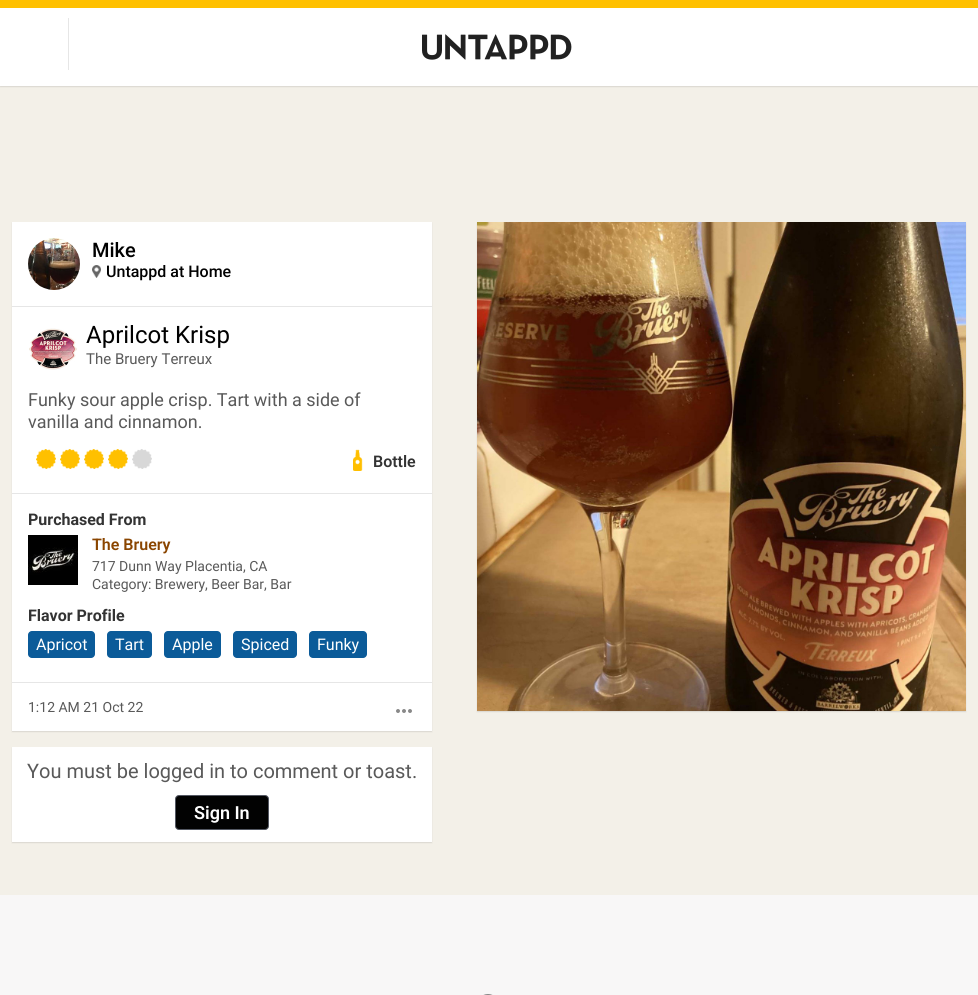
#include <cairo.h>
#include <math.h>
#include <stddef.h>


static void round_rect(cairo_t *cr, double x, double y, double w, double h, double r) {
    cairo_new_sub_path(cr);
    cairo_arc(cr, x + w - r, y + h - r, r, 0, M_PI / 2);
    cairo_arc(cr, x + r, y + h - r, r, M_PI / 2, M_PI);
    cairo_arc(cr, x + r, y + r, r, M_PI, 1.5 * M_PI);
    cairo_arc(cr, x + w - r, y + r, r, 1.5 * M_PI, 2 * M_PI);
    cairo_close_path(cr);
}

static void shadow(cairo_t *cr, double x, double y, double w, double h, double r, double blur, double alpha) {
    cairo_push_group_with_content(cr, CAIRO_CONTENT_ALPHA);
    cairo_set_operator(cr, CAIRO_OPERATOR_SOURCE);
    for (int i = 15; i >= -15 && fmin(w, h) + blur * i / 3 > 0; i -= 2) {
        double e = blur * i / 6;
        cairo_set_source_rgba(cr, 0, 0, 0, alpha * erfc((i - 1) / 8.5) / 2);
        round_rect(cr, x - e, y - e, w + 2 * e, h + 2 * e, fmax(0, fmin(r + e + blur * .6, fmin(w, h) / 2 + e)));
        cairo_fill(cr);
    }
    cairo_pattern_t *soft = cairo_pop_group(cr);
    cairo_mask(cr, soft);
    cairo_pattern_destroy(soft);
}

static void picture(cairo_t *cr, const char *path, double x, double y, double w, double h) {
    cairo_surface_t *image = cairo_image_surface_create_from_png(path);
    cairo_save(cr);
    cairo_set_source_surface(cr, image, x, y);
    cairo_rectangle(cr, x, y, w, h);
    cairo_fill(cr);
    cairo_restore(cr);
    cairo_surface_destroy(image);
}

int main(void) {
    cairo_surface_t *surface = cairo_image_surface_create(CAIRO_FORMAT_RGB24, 978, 995);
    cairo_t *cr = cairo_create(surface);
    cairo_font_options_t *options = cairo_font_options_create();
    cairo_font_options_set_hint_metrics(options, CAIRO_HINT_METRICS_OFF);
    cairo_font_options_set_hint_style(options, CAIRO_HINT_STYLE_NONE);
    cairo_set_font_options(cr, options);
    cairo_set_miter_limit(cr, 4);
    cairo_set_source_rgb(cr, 0.953, 0.941, 0.91);
    cairo_paint(cr);
    cairo_set_source_rgb(cr, 0, 0, 0);
    shadow(cr, 0, 1, 978, 86, 0, 0.5, 0.1);
    cairo_set_source_rgb(cr, 1, 1, 1);
    cairo_rectangle(cr, 0, 8, 978, 78);
    cairo_fill(cr);
    cairo_set_source_rgb(cr, 1, 0.753, 0);
    cairo_rectangle(cr, 0, 0, 978, 8);
    cairo_fill(cr);
    cairo_set_source_rgb(cr, 0.902, 0.902, 0.902);
    cairo_rectangle(cr, 68, 18, 1, 52);
    cairo_fill(cr);
    picture(cr, "img1.png", 422, 34, 150, 26);
    cairo_set_source_rgb(cr, 0, 0, 0);
    shadow(cr, 12, 223, 420, 509, 0, 0.5, 0.1);
    cairo_set_source_rgb(cr, 1, 1, 1);
    cairo_rectangle(cr, 12, 222, 420, 509);
    cairo_fill(cr);
    cairo_set_source_rgb(cr, 0.902, 0.902, 0.902);
    cairo_rectangle(cr, 12, 306, 420, 1);
    cairo_fill(cr);
    picture(cr, "img2.png", 28, 238, 52, 52);
    cairo_select_font_face(cr, "Roboto Medium", CAIRO_FONT_SLANT_NORMAL, CAIRO_FONT_WEIGHT_NORMAL);
    cairo_set_font_size(cr, 20);
    cairo_set_source_rgb(cr, 0, 0, 0);
    cairo_move_to(cr, 92, 257);
    cairo_show_text(cr, "Mike");
    picture(cr, "img3.png", 92, 265, 9, 13);
    cairo_set_font_size(cr, 16);
    cairo_move_to(cr, 106, 277);
    cairo_show_text(cr, "Untappd at Home");
    cairo_set_source_rgb(cr, 0, 0, 0);
    shadow(cr, 477, 223, 489, 489, 0, 0.5, 0.1);
    picture(cr, "img4.png", 477, 222, 489, 489);
    cairo_set_source_rgb(cr, 0.902, 0.902, 0.902);
    cairo_rectangle(cr, 12, 493, 420, 1);
    cairo_fill(cr);
    picture(cr, "img5.png", 29, 328, 48, 42);
    cairo_select_font_face(cr, "Roboto", CAIRO_FONT_SLANT_NORMAL, CAIRO_FONT_WEIGHT_NORMAL);
    cairo_set_font_size(cr, 24);
    cairo_set_source_rgb(cr, 0, 0, 0);
    cairo_move_to(cr, 86, 343);
    cairo_show_text(cr, "Aprilcot Krisp");
    cairo_set_font_size(cr, 15);
    cairo_set_source_rgb(cr, 0.349, 0.349, 0.349);
    cairo_move_to(cr, 86, 364);
    cairo_show_text(cr, "The Bruery Terreux");
    cairo_set_font_size(cr, 18);
    cairo_move_to(cr, 28, 406);
    cairo_show_text(cr, "Funky sour apple crisp. Tart with a side of");
    cairo_move_to(cr, 28, 428);
    cairo_show_text(cr, "vanilla and cinnamon.");
    picture(cr, "img6.png", 36, 449, 20, 20);
    picture(cr, "img6.png", 60, 449, 20, 20);
    picture(cr, "img7.png", 84, 449, 20, 20);
    picture(cr, "img6.png", 108, 449, 20, 20);
    picture(cr, "img8.png", 132, 449, 20, 20);
    picture(cr, "img9.png", 353, 449, 10, 22);
    cairo_select_font_face(cr, "Roboto SemiBold", CAIRO_FONT_SLANT_NORMAL, CAIRO_FONT_WEIGHT_NORMAL);
    cairo_set_font_size(cr, 16);
    cairo_set_source_rgb(cr, 0.2, 0.2, 0.2);
    cairo_move_to(cr, 373, 467);
    cairo_show_text(cr, "Bottle");
    cairo_set_source_rgb(cr, 0.902, 0.902, 0.902);
    cairo_rectangle(cr, 12, 682, 420, 1);
    cairo_fill(cr);
    cairo_select_font_face(cr, "Roboto", CAIRO_FONT_SLANT_NORMAL, CAIRO_FONT_WEIGHT_BOLD);
    cairo_set_source_rgb(cr, 0.2, 0.2, 0.2);
    cairo_move_to(cr, 28, 525);
    cairo_show_text(cr, "Purchased From");
    picture(cr, "img10.png", 28, 535, 50, 50);
    cairo_select_font_face(cr, "Roboto SemiBold", CAIRO_FONT_SLANT_NORMAL, CAIRO_FONT_WEIGHT_NORMAL);
    cairo_set_source_rgb(cr, 0.541, 0.271, 0);
    cairo_move_to(cr, 92, 550);
    cairo_show_text(cr, "The Bruery");
    cairo_select_font_face(cr, "Roboto", CAIRO_FONT_SLANT_NORMAL, CAIRO_FONT_WEIGHT_NORMAL);
    cairo_set_font_size(cr, 14);
    cairo_set_source_rgb(cr, 0.349, 0.349, 0.349);
    cairo_move_to(cr, 92, 571);
    cairo_show_text(cr, "717 Dunn Way Placentia, CA");
    cairo_move_to(cr, 92, 589);
    cairo_show_text(cr, "Category: Brewery, Beer Bar, Bar");
    cairo_select_font_face(cr, "Roboto", CAIRO_FONT_SLANT_NORMAL, CAIRO_FONT_WEIGHT_BOLD);
    cairo_set_font_size(cr, 16);
    cairo_set_source_rgb(cr, 0.2, 0.2, 0.2);
    cairo_move_to(cr, 28, 621);
    cairo_show_text(cr, "Flavor Profile");
    cairo_set_source_rgb(cr, 0.043, 0.357, 0.6);
    round_rect(cr, 28, 631, 67, 27, 4);
    cairo_fill(cr);
    cairo_select_font_face(cr, "Roboto", CAIRO_FONT_SLANT_NORMAL, CAIRO_FONT_WEIGHT_NORMAL);
    cairo_set_source_rgb(cr, 1, 1, 1);
    cairo_move_to(cr, 36, 650);
    cairo_show_text(cr, "Apricot");
    cairo_set_source_rgb(cr, 0.043, 0.357, 0.6);
    round_rect(cr, 107, 631, 45, 27, 4);
    cairo_fill(cr);
    cairo_set_source_rgb(cr, 1, 1, 1);
    cairo_move_to(cr, 115, 650);
    cairo_show_text(cr, "Tart");
    cairo_set_source_rgb(cr, 0.043, 0.357, 0.6);
    round_rect(cr, 164, 631, 57, 27, 4);
    cairo_fill(cr);
    cairo_set_source_rgb(cr, 1, 1, 1);
    cairo_move_to(cr, 172, 650);
    cairo_show_text(cr, "Apple");
    cairo_set_source_rgb(cr, 0.043, 0.357, 0.6);
    round_rect(cr, 233, 631, 64, 27, 4);
    cairo_fill(cr);
    cairo_set_source_rgb(cr, 1, 1, 1);
    cairo_move_to(cr, 241, 650);
    cairo_show_text(cr, "Spiced");
    cairo_set_source_rgb(cr, 0.043, 0.357, 0.6);
    round_rect(cr, 309, 631, 58, 27, 4);
    cairo_fill(cr);
    cairo_set_source_rgb(cr, 1, 1, 1);
    cairo_move_to(cr, 317, 650);
    cairo_show_text(cr, "Funky");
    cairo_set_font_size(cr, 14);
    cairo_set_source_rgb(cr, 0.349, 0.349, 0.349);
    cairo_move_to(cr, 28, 712);
    cairo_show_text(cr, "1:12 AM 21 Oct 22");
    picture(cr, "img11.png", 396, 709, 16, 4);
    cairo_set_source_rgb(cr, 0, 0, 0);
    shadow(cr, 12, 748, 420, 95, 0, 0.5, 0.1);
    cairo_set_source_rgb(cr, 1, 1, 1);
    cairo_rectangle(cr, 12, 747, 420, 95);
    cairo_fill(cr);
    cairo_set_font_size(cr, 20);
    cairo_set_source_rgb(cr, 0.349, 0.349, 0.349);
    cairo_move_to(cr, 27, 778);
    cairo_show_text(cr, "You must be logged in to comment or toast.");
    cairo_set_source_rgb(cr, 0.008, 0.008, 0.008);
    round_rect(cr, 175.5, 795.5, 93, 34, 3.5);
    cairo_fill_preserve(cr);
    cairo_set_source_rgb(cr, 0.329, 0.345, 0.388);
    cairo_set_line_width(cr, 1);
    cairo_stroke(cr);
    cairo_select_font_face(cr, "Roboto SemiBold", CAIRO_FONT_SLANT_NORMAL, CAIRO_FONT_WEIGHT_NORMAL);
    cairo_set_font_size(cr, 18);
    cairo_set_source_rgb(cr, 1, 1, 1);
    cairo_move_to(cr, 194, 819);
    cairo_show_text(cr, "Sign In");
    cairo_set_source_rgb(cr, 0.969, 0.965, 0.965);
    cairo_rectangle(cr, 0, 895, 978, 100);
    cairo_fill(cr);
    round_rect(cr, 477.5, 994.5, 21, 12, 10.5);
    cairo_set_source_rgb(cr, 0.533, 0.533, 0.533);
    cairo_stroke(cr);
    cairo_surface_write_to_png(surface, "page.png");
    cairo_font_options_destroy(options);
    cairo_destroy(cr);
    cairo_surface_destroy(surface);
    return 0;
}
